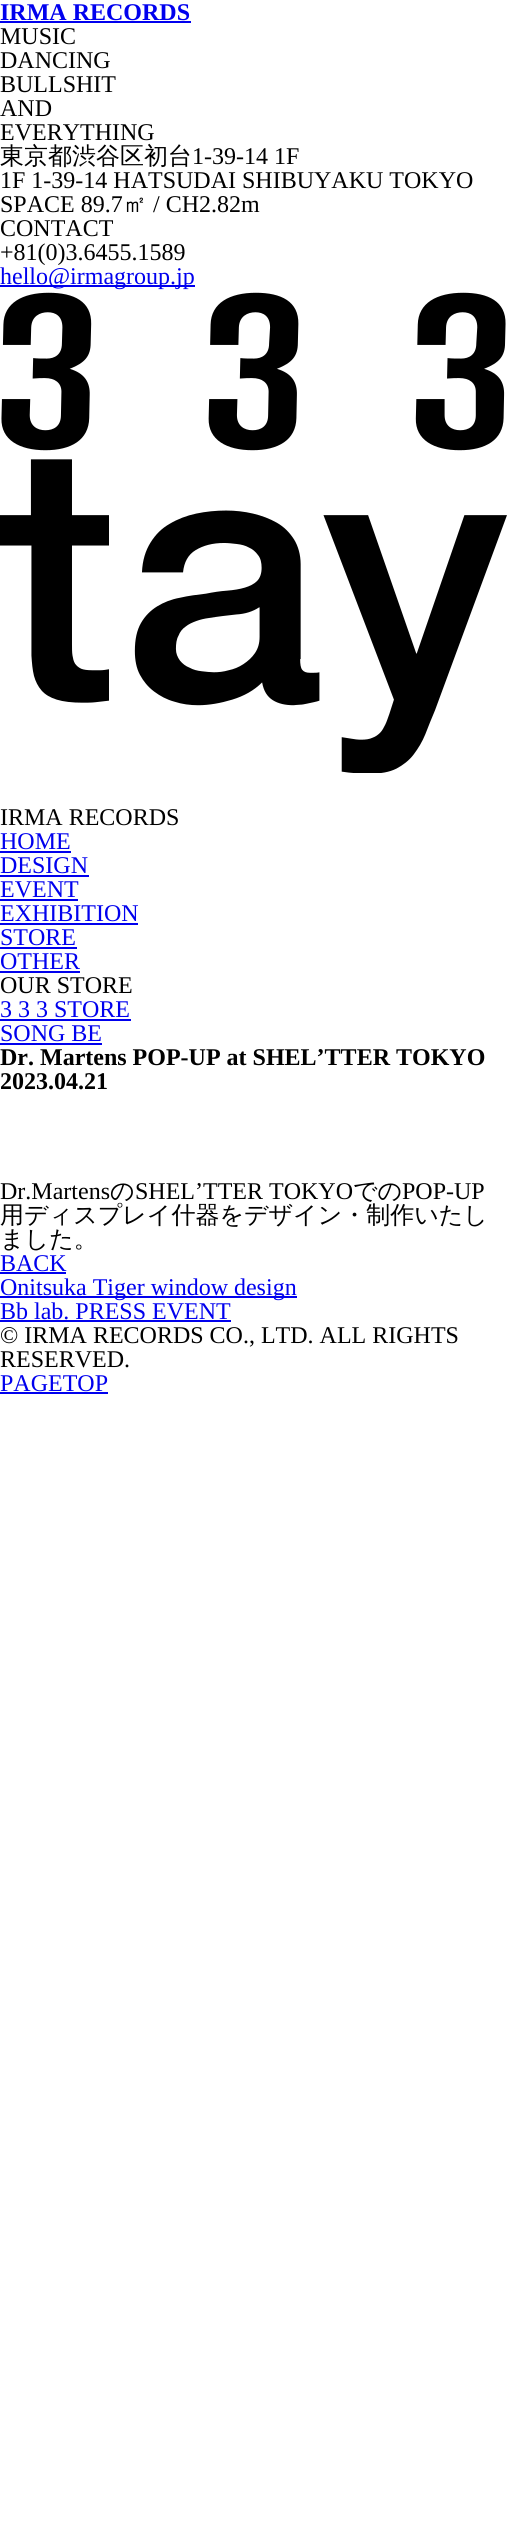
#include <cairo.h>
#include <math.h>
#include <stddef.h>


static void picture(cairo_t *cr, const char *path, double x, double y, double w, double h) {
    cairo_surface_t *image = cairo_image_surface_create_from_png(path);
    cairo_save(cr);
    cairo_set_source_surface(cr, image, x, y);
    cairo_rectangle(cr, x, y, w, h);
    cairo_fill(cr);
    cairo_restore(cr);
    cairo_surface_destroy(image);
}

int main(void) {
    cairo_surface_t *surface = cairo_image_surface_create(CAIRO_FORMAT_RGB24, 507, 2537);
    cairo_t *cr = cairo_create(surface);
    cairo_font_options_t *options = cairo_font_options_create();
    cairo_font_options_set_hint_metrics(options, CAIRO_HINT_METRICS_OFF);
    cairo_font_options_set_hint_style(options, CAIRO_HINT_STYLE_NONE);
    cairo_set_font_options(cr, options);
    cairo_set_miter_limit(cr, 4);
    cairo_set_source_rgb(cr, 1, 1, 1);
    cairo_paint(cr);
    cairo_select_font_face(cr, "Liberation Serif", CAIRO_FONT_SLANT_NORMAL, CAIRO_FONT_WEIGHT_BOLD);
    cairo_set_font_size(cr, 24);
    cairo_set_source_rgb(cr, 0, 0, 0.933);
    cairo_move_to(cr, 0, 20);
    cairo_show_text(cr, "IRMA RECORDS");
    cairo_rectangle(cr, 0, 21, 191, 2);
    cairo_fill(cr);
    cairo_select_font_face(cr, "Liberation Serif", CAIRO_FONT_SLANT_NORMAL, CAIRO_FONT_WEIGHT_NORMAL);
    cairo_set_source_rgb(cr, 0, 0, 0);
    cairo_move_to(cr, 0, 44);
    cairo_show_text(cr, "MUSIC");
    cairo_move_to(cr, 0, 68);
    cairo_show_text(cr, "DANCING");
    cairo_move_to(cr, 0, 92);
    cairo_show_text(cr, "BULLSHIT");
    cairo_move_to(cr, 0, 116);
    cairo_show_text(cr, "AND");
    cairo_move_to(cr, 0, 140);
    cairo_show_text(cr, "EVERYTHING");
    cairo_select_font_face(cr, "WenQuanYi Zen Hei Medium", CAIRO_FONT_SLANT_NORMAL, CAIRO_FONT_WEIGHT_NORMAL);
    cairo_move_to(cr, 0, 164);
    cairo_show_text(cr, "東京都渋谷区初台");
    cairo_select_font_face(cr, "Liberation Serif", CAIRO_FONT_SLANT_NORMAL, CAIRO_FONT_WEIGHT_NORMAL);
    cairo_move_to(cr, 192, 164);
    cairo_show_text(cr, "1-39-14 1F");
    cairo_move_to(cr, 0, 188);
    cairo_show_text(cr, "1F 1-39-14 HATSUDAI SHIBUYAKU TOKYO");
    cairo_move_to(cr, 0, 212);
    cairo_show_text(cr, "SPACE 89.7");
    cairo_select_font_face(cr, "WenQuanYi Zen Hei Medium", CAIRO_FONT_SLANT_NORMAL, CAIRO_FONT_WEIGHT_NORMAL);
    cairo_move_to(cr, 123, 212);
    cairo_show_text(cr, "㎡");
    cairo_select_font_face(cr, "Liberation Serif", CAIRO_FONT_SLANT_NORMAL, CAIRO_FONT_WEIGHT_NORMAL);
    cairo_move_to(cr, 153, 212);
    cairo_show_text(cr, "/ CH2.82m");
    cairo_move_to(cr, 0, 236);
    cairo_show_text(cr, "CONTACT");
    cairo_move_to(cr, 0, 260);
    cairo_show_text(cr, "+81(0)3.6455.1589");
    cairo_set_source_rgb(cr, 0, 0, 0.933);
    cairo_rectangle(cr, 0, 285, 195, 2);
    cairo_fill(cr);
    cairo_move_to(cr, 0, 284);
    cairo_show_text(cr, "hello@irmagroup.jp");
    picture(cr, "img1.png", 1, 292, 505, 159);
    picture(cr, "img2.png", 0, 459, 507, 314);
    cairo_set_source_rgb(cr, 0, 0, 0);
    cairo_move_to(cr, 0, 825);
    cairo_show_text(cr, "IRMA RECORDS");
    cairo_set_source_rgb(cr, 0, 0, 0.933);
    cairo_move_to(cr, 0, 849);
    cairo_show_text(cr, "HOME");
    cairo_rectangle(cr, 0, 851, 71, 2);
    cairo_fill(cr);
    cairo_move_to(cr, 0, 873);
    cairo_show_text(cr, "DESIGN");
    cairo_rectangle(cr, 0, 875, 89, 2);
    cairo_fill(cr);
    cairo_move_to(cr, 0, 897);
    cairo_show_text(cr, "EVENT");
    cairo_rectangle(cr, 0, 899, 78, 2);
    cairo_fill(cr);
    cairo_move_to(cr, 0, 921);
    cairo_show_text(cr, "EXHIBITION");
    cairo_rectangle(cr, 0, 923, 138, 2);
    cairo_fill(cr);
    cairo_move_to(cr, 0, 945);
    cairo_show_text(cr, "STORE");
    cairo_rectangle(cr, 0, 947, 77, 2);
    cairo_fill(cr);
    cairo_move_to(cr, 0, 969);
    cairo_show_text(cr, "OTHER");
    cairo_rectangle(cr, 0, 971, 80, 2);
    cairo_fill(cr);
    cairo_set_source_rgb(cr, 0, 0, 0);
    cairo_move_to(cr, 0, 993);
    cairo_show_text(cr, "OUR STORE");
    cairo_set_source_rgb(cr, 0, 0, 0.933);
    cairo_move_to(cr, 0, 1017);
    cairo_show_text(cr, "3 3 3 STORE");
    cairo_rectangle(cr, 0, 1019, 131, 2);
    cairo_fill(cr);
    cairo_move_to(cr, 0, 1041);
    cairo_show_text(cr, "SONG BE");
    cairo_rectangle(cr, 0, 1043, 102, 2);
    cairo_fill(cr);
    cairo_select_font_face(cr, "Liberation Serif", CAIRO_FONT_SLANT_NORMAL, CAIRO_FONT_WEIGHT_BOLD);
    cairo_set_source_rgb(cr, 0, 0, 0);
    cairo_move_to(cr, 0, 1065);
    cairo_show_text(cr, "Dr. Martens POP-UP at SHEL’TTER TOKYO");
    cairo_move_to(cr, 0, 1089);
    cairo_show_text(cr, "2023.04.21");
    cairo_select_font_face(cr, "Liberation Serif", CAIRO_FONT_SLANT_NORMAL, CAIRO_FONT_WEIGHT_NORMAL);
    cairo_move_to(cr, 0, 1199);
    cairo_show_text(cr, "Dr.Martens");
    cairo_select_font_face(cr, "WenQuanYi Zen Hei Medium", CAIRO_FONT_SLANT_NORMAL, CAIRO_FONT_WEIGHT_NORMAL);
    cairo_move_to(cr, 110, 1199);
    cairo_show_text(cr, "の");
    cairo_select_font_face(cr, "Liberation Serif", CAIRO_FONT_SLANT_NORMAL, CAIRO_FONT_WEIGHT_NORMAL);
    cairo_move_to(cr, 135, 1199);
    cairo_show_text(cr, "SHEL’TTER TOKYO");
    cairo_select_font_face(cr, "WenQuanYi Zen Hei Medium", CAIRO_FONT_SLANT_NORMAL, CAIRO_FONT_WEIGHT_NORMAL);
    cairo_move_to(cr, 353, 1199);
    cairo_show_text(cr, "での");
    cairo_select_font_face(cr, "Liberation Serif", CAIRO_FONT_SLANT_NORMAL, CAIRO_FONT_WEIGHT_NORMAL);
    cairo_move_to(cr, 402, 1199);
    cairo_show_text(cr, "POP-UP");
    cairo_select_font_face(cr, "WenQuanYi Zen Hei Medium", CAIRO_FONT_SLANT_NORMAL, CAIRO_FONT_WEIGHT_NORMAL);
    cairo_move_to(cr, 0, 1223);
    cairo_show_text(cr, "用ディスプレイ什器をデザイン・制作いたし");
    cairo_move_to(cr, 0, 1247);
    cairo_show_text(cr, "ました。");
    cairo_select_font_face(cr, "Liberation Serif", CAIRO_FONT_SLANT_NORMAL, CAIRO_FONT_WEIGHT_NORMAL);
    cairo_set_source_rgb(cr, 0, 0, 0.933);
    cairo_move_to(cr, 0, 1271);
    cairo_show_text(cr, "BACK");
    cairo_rectangle(cr, 0, 1272, 66, 2);
    cairo_fill(cr);
    cairo_rectangle(cr, 0, 1296, 297, 2);
    cairo_fill(cr);
    cairo_move_to(cr, 0, 1295);
    cairo_show_text(cr, "Onitsuka Tiger window design");
    cairo_move_to(cr, 0, 1319);
    cairo_show_text(cr, "Bb lab. PRESS EVENT");
    cairo_rectangle(cr, 0, 1320, 231, 2);
    cairo_fill(cr);
    cairo_set_source_rgb(cr, 0, 0, 0);
    cairo_move_to(cr, 0, 1343);
    cairo_show_text(cr, "© IRMA RECORDS CO., LTD. ALL RIGHTS");
    cairo_move_to(cr, 0, 1367);
    cairo_show_text(cr, "RESERVED.");
    cairo_set_source_rgb(cr, 0, 0, 0.933);
    cairo_move_to(cr, 0, 1391);
    cairo_show_text(cr, "PAGETOP");
    cairo_rectangle(cr, 0, 1392, 108, 2);
    cairo_fill(cr);
    cairo_surface_write_to_png(surface, "page.png");
    cairo_font_options_destroy(options);
    cairo_destroy(cr);
    cairo_surface_destroy(surface);
    return 0;
}
